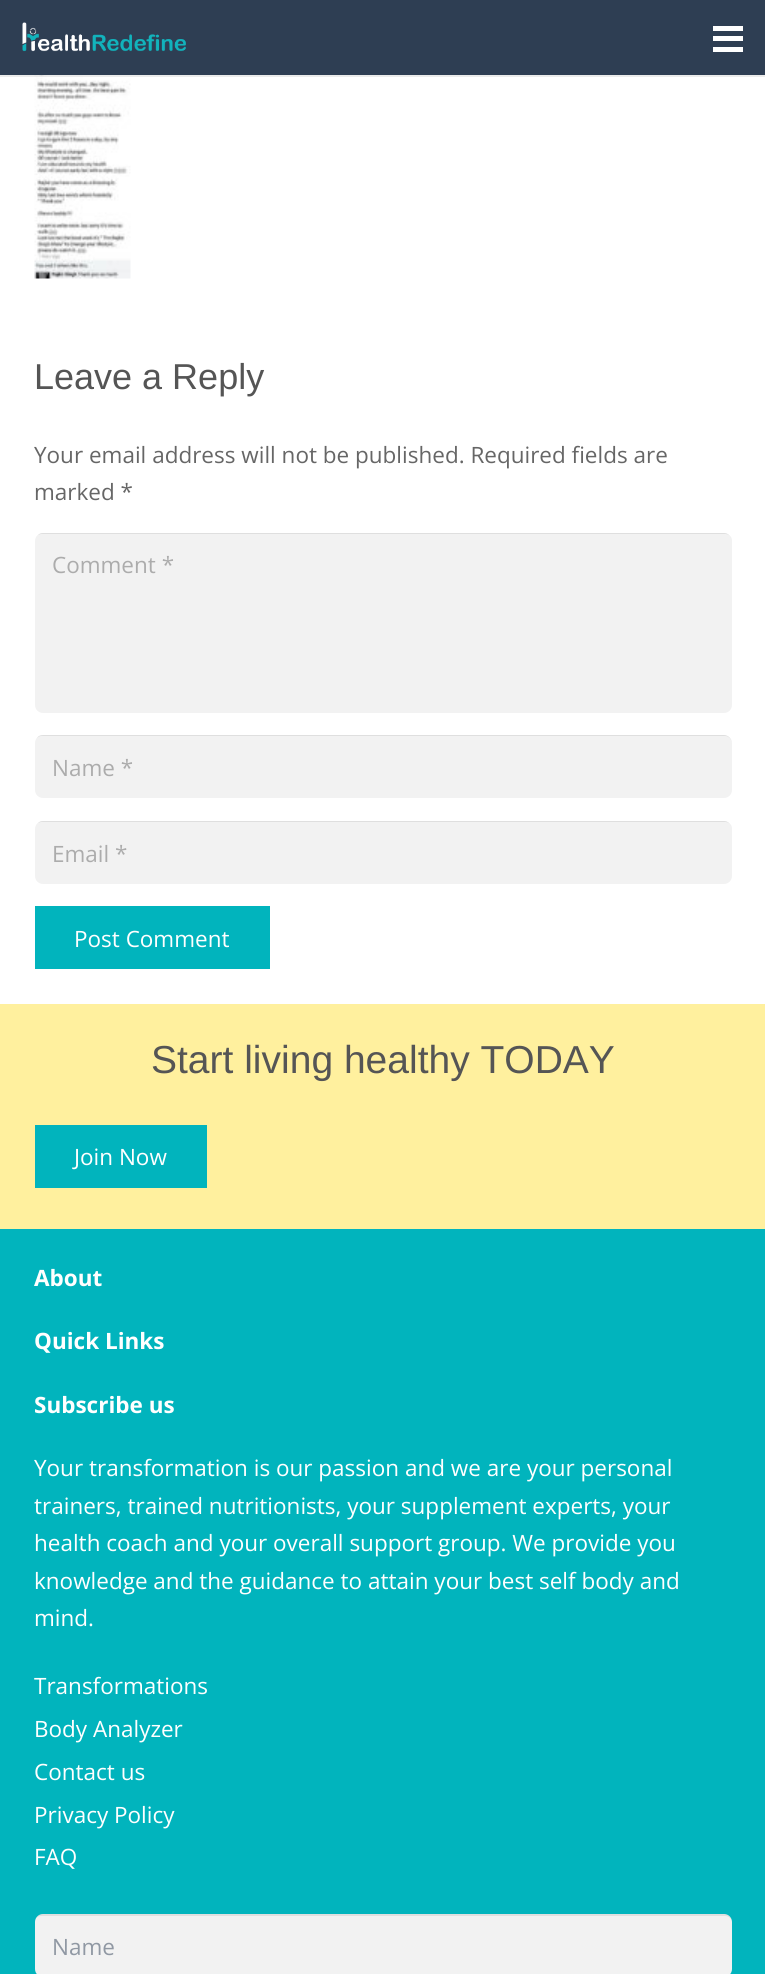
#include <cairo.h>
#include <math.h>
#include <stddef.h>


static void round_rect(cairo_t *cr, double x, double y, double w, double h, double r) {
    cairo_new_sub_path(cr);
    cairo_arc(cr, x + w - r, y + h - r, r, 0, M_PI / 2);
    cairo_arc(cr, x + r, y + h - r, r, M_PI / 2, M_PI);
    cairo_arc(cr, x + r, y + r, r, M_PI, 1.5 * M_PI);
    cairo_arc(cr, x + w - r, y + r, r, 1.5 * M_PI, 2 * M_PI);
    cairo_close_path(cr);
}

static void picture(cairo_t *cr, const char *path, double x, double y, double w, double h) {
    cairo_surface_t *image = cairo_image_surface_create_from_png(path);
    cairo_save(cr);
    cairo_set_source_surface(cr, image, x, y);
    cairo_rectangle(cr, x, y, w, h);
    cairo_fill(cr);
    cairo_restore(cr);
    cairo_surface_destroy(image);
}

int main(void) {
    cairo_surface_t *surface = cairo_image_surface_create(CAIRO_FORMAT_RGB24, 765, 1974);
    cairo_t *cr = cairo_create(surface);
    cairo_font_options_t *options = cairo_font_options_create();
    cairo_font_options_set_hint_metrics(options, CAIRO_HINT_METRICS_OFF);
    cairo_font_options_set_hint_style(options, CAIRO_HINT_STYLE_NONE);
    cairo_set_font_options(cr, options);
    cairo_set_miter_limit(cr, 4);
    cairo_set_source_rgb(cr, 1, 1, 1);
    cairo_paint(cr);
    picture(cr, "img2.png", 34, 75, 97, 204);
    cairo_set_source_rgba(cr, 0, 0, 0, 0.08);
    cairo_rectangle(cr, 0, 75, 765, 2);
    cairo_fill(cr);
    cairo_set_source_rgb(cr, 0.18, 0.243, 0.325);
    cairo_rectangle(cr, 0, 0, 765, 75);
    cairo_fill(cr);
    picture(cr, "img1.png", 22, 22, 164, 30);
    cairo_set_source_rgb(cr, 1, 1, 1);
    cairo_rectangle(cr, 713, 36, 30, 5);
    cairo_fill(cr);
    cairo_rectangle(cr, 713, 26, 30, 5);
    cairo_fill(cr);
    cairo_rectangle(cr, 713, 47, 30, 5);
    cairo_fill(cr);
    cairo_select_font_face(cr, "Liberation Sans", CAIRO_FONT_SLANT_NORMAL, CAIRO_FONT_WEIGHT_NORMAL);
    cairo_set_font_size(cr, 36);
    cairo_set_source_rgb(cr, 0.333, 0.333, 0.333);
    cairo_move_to(cr, 34, 389);
    cairo_show_text(cr, "Leave a Reply");
    cairo_select_font_face(cr, "Open Sans", CAIRO_FONT_SLANT_NORMAL, CAIRO_FONT_WEIGHT_NORMAL);
    cairo_set_font_size(cr, 22.5);
    cairo_set_source_rgb(cr, 0.4, 0.4, 0.4);
    cairo_move_to(cr, 34, 463);
    cairo_show_text(cr, "Your email address will not be published. Required fields are");
    cairo_move_to(cr, 34, 500);
    cairo_show_text(cr, "marked *");
    cairo_set_source_rgb(cr, 0.949, 0.949, 0.949);
    round_rect(cr, 35, 533, 697, 180, 8);
    cairo_fill(cr);
    cairo_set_source_rgb(cr, 0.875, 0.875, 0.875);
    cairo_new_path(cr);
    cairo_move_to(cr, 41, 534);
    cairo_line_to(cr, 725, 534);
    cairo_curve_to(cr, 729, 534, 732, 537, 732, 541);
    cairo_curve_to(cr, 732, 537, 728, 533, 724, 533);
    cairo_line_to(cr, 43, 533);
    cairo_curve_to(cr, 41, 533, 39, 534, 38, 535);
    cairo_close_path(cr);
    cairo_fill(cr);
    cairo_set_source_rgb(cr, 0.675, 0.675, 0.675);
    cairo_move_to(cr, 52, 573);
    cairo_show_text(cr, "Comment *");
    cairo_set_source_rgb(cr, 0.949, 0.949, 0.949);
    round_rect(cr, 35, 735, 697, 63, 8);
    cairo_fill(cr);
    cairo_set_source_rgba(cr, 0, 0, 0, 0.08);
    cairo_new_path(cr);
    cairo_move_to(cr, 41, 736);
    cairo_line_to(cr, 725, 736);
    cairo_curve_to(cr, 729, 736, 732, 740, 732, 743);
    cairo_curve_to(cr, 732, 739, 728, 735, 724, 735);
    cairo_line_to(cr, 43, 735);
    cairo_curve_to(cr, 40, 735, 38, 736, 37, 738);
    cairo_curve_to(cr, 38, 737, 40, 736, 41, 736);
    cairo_close_path(cr);
    cairo_fill(cr);
    cairo_set_source_rgb(cr, 0.675, 0.675, 0.675);
    cairo_move_to(cr, 52, 776);
    cairo_show_text(cr, "Name *");
    cairo_set_source_rgb(cr, 0.949, 0.949, 0.949);
    round_rect(cr, 35, 821, 697, 63, 8);
    cairo_fill(cr);
    cairo_set_source_rgb(cr, 0.875, 0.875, 0.875);
    cairo_new_path(cr);
    cairo_move_to(cr, 41, 822);
    cairo_line_to(cr, 725, 822);
    cairo_curve_to(cr, 729, 822, 732, 825, 732, 829);
    cairo_curve_to(cr, 732, 825, 728, 821, 724, 821);
    cairo_line_to(cr, 43, 821);
    cairo_curve_to(cr, 41, 821, 39, 822, 38, 823);
    cairo_close_path(cr);
    cairo_fill(cr);
    cairo_set_source_rgb(cr, 0.675, 0.675, 0.675);
    cairo_move_to(cr, 52, 862);
    cairo_show_text(cr, "Email *");
    cairo_set_source_rgb(cr, 0.004, 0.706, 0.741);
    cairo_rectangle(cr, 35, 906, 235, 63);
    cairo_fill(cr);
    cairo_set_source_rgb(cr, 1, 1, 1);
    cairo_move_to(cr, 74, 947);
    cairo_show_text(cr, "Post Comment");
    cairo_set_source_rgb(cr, 1, 0.941, 0.62);
    cairo_rectangle(cr, 0, 1004, 765, 225);
    cairo_fill(cr);
    cairo_select_font_face(cr, "Liberation Sans", CAIRO_FONT_SLANT_NORMAL, CAIRO_FONT_WEIGHT_NORMAL);
    cairo_set_font_size(cr, 39);
    cairo_set_source_rgb(cr, 0.333, 0.333, 0.333);
    cairo_move_to(cr, 151, 1073);
    cairo_show_text(cr, "Start living healthy TODAY");
    cairo_set_source_rgb(cr, 0.004, 0.706, 0.741);
    cairo_rectangle(cr, 35, 1125, 172, 63);
    cairo_fill(cr);
    cairo_select_font_face(cr, "Open Sans", CAIRO_FONT_SLANT_NORMAL, CAIRO_FONT_WEIGHT_NORMAL);
    cairo_set_font_size(cr, 22.5);
    cairo_set_source_rgb(cr, 1, 1, 1);
    cairo_move_to(cr, 74, 1165);
    cairo_show_text(cr, "Join Now");
    cairo_set_source_rgb(cr, 0.004, 0.706, 0.741);
    cairo_rectangle(cr, 0, 1229, 765, 745);
    cairo_fill(cr);
    cairo_select_font_face(cr, "Open Sans", CAIRO_FONT_SLANT_NORMAL, CAIRO_FONT_WEIGHT_BOLD);
    cairo_set_source_rgb(cr, 1, 1, 1);
    cairo_move_to(cr, 34, 1286);
    cairo_show_text(cr, "About");
    cairo_move_to(cr, 34, 1349);
    cairo_show_text(cr, "Quick Links");
    cairo_move_to(cr, 34, 1413);
    cairo_show_text(cr, "Subscribe us");
    cairo_select_font_face(cr, "Open Sans", CAIRO_FONT_SLANT_NORMAL, CAIRO_FONT_WEIGHT_NORMAL);
    cairo_move_to(cr, 34, 1476);
    cairo_show_text(cr, "Your transformation is our passion and we are your personal");
    cairo_move_to(cr, 34, 1514);
    cairo_show_text(cr, "trainers, trained nutritionists, your supplement experts, your");
    cairo_move_to(cr, 34, 1551);
    cairo_show_text(cr, "health coach and your overall support group. We provide you");
    cairo_move_to(cr, 34, 1589);
    cairo_show_text(cr, "knowledge and the guidance to attain your best self body and");
    cairo_move_to(cr, 34, 1626);
    cairo_show_text(cr, "mind.");
    cairo_move_to(cr, 34, 1694);
    cairo_show_text(cr, "Transformations");
    cairo_move_to(cr, 34, 1737);
    cairo_show_text(cr, "Body Analyzer");
    cairo_move_to(cr, 34, 1780);
    cairo_show_text(cr, "Contact us");
    cairo_move_to(cr, 34, 1823);
    cairo_show_text(cr, "Privacy Policy");
    cairo_move_to(cr, 34, 1865);
    cairo_show_text(cr, "FAQ");
    cairo_set_source_rgb(cr, 0.949, 0.949, 0.949);
    round_rect(cr, 35, 1914, 697, 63, 8);
    cairo_fill(cr);
    cairo_set_source_rgba(cr, 0, 0, 0, 0.08);
    cairo_new_path(cr);
    cairo_move_to(cr, 41, 1916);
    cairo_line_to(cr, 725, 1916);
    cairo_curve_to(cr, 729, 1916, 732, 1919, 732, 1922);
    cairo_curve_to(cr, 732, 1918, 728, 1914, 724, 1914);
    cairo_line_to(cr, 43, 1914);
    cairo_curve_to(cr, 40, 1914, 37, 1916, 36, 1918);
    cairo_curve_to(cr, 37, 1917, 39, 1916, 41, 1916);
    cairo_close_path(cr);
    cairo_fill(cr);
    cairo_set_source_rgb(cr, 0.565, 0.596, 0.639);
    cairo_move_to(cr, 52, 1955);
    cairo_show_text(cr, "Name");
    cairo_surface_write_to_png(surface, "page.png");
    cairo_font_options_destroy(options);
    cairo_destroy(cr);
    cairo_surface_destroy(surface);
    return 0;
}
